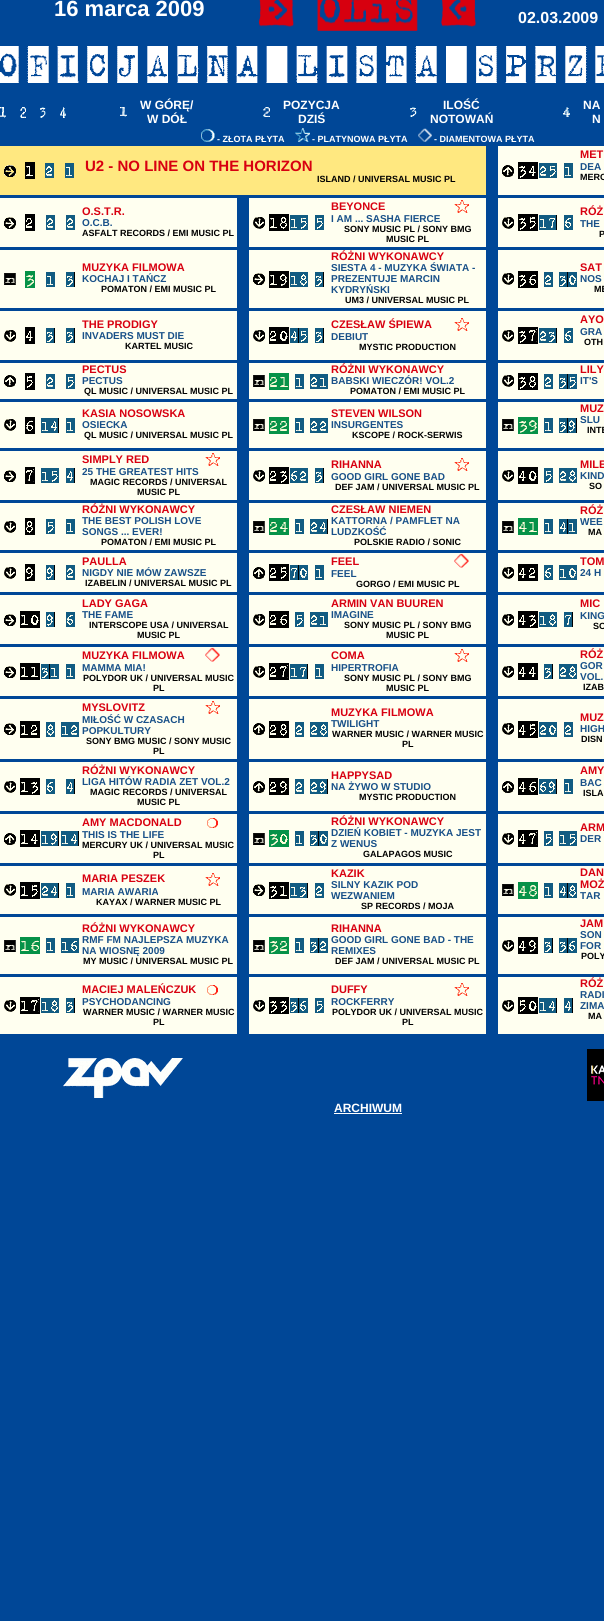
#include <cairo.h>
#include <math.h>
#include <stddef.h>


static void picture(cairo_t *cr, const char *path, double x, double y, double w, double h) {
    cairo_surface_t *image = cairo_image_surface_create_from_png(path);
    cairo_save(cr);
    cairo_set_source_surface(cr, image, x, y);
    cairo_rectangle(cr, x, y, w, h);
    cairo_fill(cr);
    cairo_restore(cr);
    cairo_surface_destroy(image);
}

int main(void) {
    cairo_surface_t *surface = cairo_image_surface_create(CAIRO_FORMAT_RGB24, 604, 1621);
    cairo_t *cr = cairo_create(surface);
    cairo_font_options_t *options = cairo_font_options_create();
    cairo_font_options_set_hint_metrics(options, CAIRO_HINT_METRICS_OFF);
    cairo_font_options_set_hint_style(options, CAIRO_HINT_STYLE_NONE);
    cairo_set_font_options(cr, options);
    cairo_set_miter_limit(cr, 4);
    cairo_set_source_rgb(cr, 0, 0.278, 0.592);
    cairo_paint(cr);
    cairo_select_font_face(cr, "Liberation Sans", CAIRO_FONT_SLANT_NORMAL, CAIRO_FONT_WEIGHT_BOLD);
    cairo_set_font_size(cr, 22);
    cairo_set_source_rgb(cr, 1, 1, 1);
    cairo_move_to(cr, 54, 16);
    cairo_show_text(cr, "16 marca 2009");
    picture(cr, "img1.png", 259, 0, 217, 31);
    cairo_set_font_size(cr, 16);
    cairo_move_to(cr, 518, 23);
    cairo_show_text(cr, "02.03.2009");
    picture(cr, "img2.png", 0, 46, 604, 37);
    picture(cr, "img3.png", 0, 107, 6, 11);
    picture(cr, "img4.png", 20, 107, 6, 11);
    picture(cr, "img5.png", 40, 107, 6, 11);
    picture(cr, "img6.png", 60, 107, 6, 11);
    picture(cr, "img7.png", 120, 107, 7, 10);
    cairo_set_font_size(cr, 12);
    cairo_move_to(cr, 140, 109);
    cairo_show_text(cr, "W GÓRĘ/");
    cairo_move_to(cr, 147, 123);
    cairo_show_text(cr, "W DÓŁ");
    picture(cr, "img8.png", 263, 107, 7, 10);
    cairo_move_to(cr, 283, 109);
    cairo_show_text(cr, "POZYCJA");
    cairo_move_to(cr, 298, 123);
    cairo_show_text(cr, "DZIŚ");
    picture(cr, "img9.png", 410, 107, 7, 10);
    cairo_move_to(cr, 443, 109);
    cairo_show_text(cr, "ILOŚĆ");
    cairo_move_to(cr, 430, 123);
    cairo_show_text(cr, "NOTOWAŃ");
    picture(cr, "img10.png", 563, 107, 7, 10);
    cairo_move_to(cr, 583, 109);
    cairo_show_text(cr, "NA");
    cairo_move_to(cr, 592, 123);
    cairo_show_text(cr, "N");
    picture(cr, "img11.png", 201, 129, 14, 13);
    cairo_set_font_size(cr, 9);
    cairo_move_to(cr, 217, 142);
    cairo_show_text(cr, "- ZŁOTA PŁYTA");
    picture(cr, "img12.png", 295, 128, 15, 14);
    cairo_move_to(cr, 312, 142);
    cairo_show_text(cr, "- PLATYNOWA PŁYTA");
    picture(cr, "img13.png", 418, 128, 14, 14);
    cairo_move_to(cr, 434, 142);
    cairo_show_text(cr, "- DIAMENTOWA PŁYTA");
    cairo_set_source_rgb(cr, 1, 0.91, 0.502);
    cairo_rectangle(cr, 0, 146, 486, 49);
    cairo_fill(cr);
    picture(cr, "img14.png", 4, 165, 12, 12);
    picture(cr, "img15.png", 25, 162, 10, 17);
    picture(cr, "img16.png", 45, 163, 9, 15);
    picture(cr, "img17.png", 65, 163, 9, 15);
    cairo_set_font_size(cr, 15);
    cairo_set_source_rgb(cr, 0.847, 0, 0.063);
    cairo_move_to(cr, 85, 171);
    cairo_show_text(cr, "U2 - NO LINE ON THE HORIZON");
    cairo_set_font_size(cr, 9);
    cairo_set_source_rgb(cr, 0, 0, 0);
    cairo_move_to(cr, 317, 182);
    cairo_show_text(cr, "ISLAND / UNIVERSAL MUSIC PL");
    cairo_set_source_rgb(cr, 1, 1, 0.941);
    cairo_rectangle(cr, 498, 146, 106, 49);
    cairo_fill(cr);
    picture(cr, "img18.png", 502, 165, 12, 12);
    picture(cr, "img19.png", 518, 162, 10, 17);
    picture(cr, "img20.png", 528, 162, 10, 17);
    picture(cr, "img16.png", 539, 163, 9, 15);
    picture(cr, "img21.png", 548, 163, 9, 15);
    picture(cr, "img17.png", 564, 163, 9, 15);
    cairo_set_font_size(cr, 11);
    cairo_set_source_rgb(cr, 0.847, 0, 0.063);
    cairo_move_to(cr, 580, 158);
    cairo_show_text(cr, "MET");
    cairo_set_font_size(cr, 10);
    cairo_set_source_rgb(cr, 0.094, 0.314, 0.533);
    cairo_move_to(cr, 580, 170);
    cairo_show_text(cr, "DEA");
    cairo_set_font_size(cr, 9);
    cairo_set_source_rgb(cr, 0, 0, 0);
    cairo_move_to(cr, 580, 180);
    cairo_show_text(cr, "MERC");
    cairo_set_source_rgb(cr, 1, 1, 0.941);
    cairo_rectangle(cr, 0, 198, 237, 49);
    cairo_fill(cr);
    picture(cr, "img22.png", 4, 217, 12, 12);
    picture(cr, "img23.png", 25, 214, 10, 17);
    picture(cr, "img16.png", 46, 215, 9, 15);
    picture(cr, "img16.png", 66, 215, 9, 15);
    cairo_set_font_size(cr, 11);
    cairo_set_source_rgb(cr, 0.847, 0, 0.063);
    cairo_move_to(cr, 82, 215);
    cairo_show_text(cr, "O.S.T.R.");
    cairo_set_font_size(cr, 10);
    cairo_set_source_rgb(cr, 0.094, 0.314, 0.533);
    cairo_move_to(cr, 82, 226);
    cairo_show_text(cr, "O.C.B.");
    cairo_set_font_size(cr, 9);
    cairo_set_source_rgb(cr, 0, 0, 0);
    cairo_move_to(cr, 82, 236);
    cairo_show_text(cr, "ASFALT RECORDS / EMI MUSIC PL");
    cairo_set_source_rgb(cr, 1, 1, 0.941);
    cairo_rectangle(cr, 249, 198, 237, 49);
    cairo_fill(cr);
    picture(cr, "img24.png", 253, 217, 12, 12);
    picture(cr, "img15.png", 269, 214, 10, 17);
    picture(cr, "img25.png", 279, 214, 10, 17);
    picture(cr, "img17.png", 290, 215, 9, 15);
    picture(cr, "img21.png", 299, 215, 9, 15);
    picture(cr, "img21.png", 315, 215, 9, 15);
    cairo_set_font_size(cr, 11);
    cairo_set_source_rgb(cr, 0.847, 0, 0.063);
    cairo_move_to(cr, 331, 210);
    cairo_show_text(cr, "BEYONCE");
    picture(cr, "img26.png", 454, 200, 15, 13);
    cairo_set_font_size(cr, 10);
    cairo_set_source_rgb(cr, 0.094, 0.314, 0.533);
    cairo_move_to(cr, 331, 222);
    cairo_show_text(cr, "I AM ... SASHA FIERCE");
    cairo_set_font_size(cr, 9);
    cairo_set_source_rgb(cr, 0, 0, 0);
    cairo_move_to(cr, 344, 232);
    cairo_show_text(cr, "SONY MUSIC PL / SONY BMG");
    cairo_move_to(cr, 386, 242);
    cairo_show_text(cr, "MUSIC PL");
    cairo_set_source_rgb(cr, 1, 1, 0.941);
    cairo_rectangle(cr, 498, 198, 106, 49);
    cairo_fill(cr);
    picture(cr, "img24.png", 502, 217, 12, 12);
    picture(cr, "img19.png", 518, 214, 10, 17);
    picture(cr, "img27.png", 528, 214, 10, 17);
    picture(cr, "img17.png", 539, 215, 9, 15);
    picture(cr, "img28.png", 548, 215, 9, 15);
    picture(cr, "img29.png", 564, 215, 9, 15);
    cairo_set_font_size(cr, 11);
    cairo_set_source_rgb(cr, 0.847, 0, 0.063);
    cairo_move_to(cr, 580, 215);
    cairo_show_text(cr, "RÓŻ");
    cairo_set_font_size(cr, 10);
    cairo_set_source_rgb(cr, 0.094, 0.314, 0.533);
    cairo_move_to(cr, 580, 227);
    cairo_show_text(cr, "THE");
    cairo_set_font_size(cr, 9);
    cairo_set_source_rgb(cr, 0, 0, 0);
    cairo_move_to(cr, 599, 237);
    cairo_show_text(cr, "P");
    cairo_set_source_rgb(cr, 1, 1, 0.941);
    cairo_rectangle(cr, 0, 250, 237, 58);
    cairo_fill(cr);
    picture(cr, "img30.png", 4, 273, 12, 12);
    picture(cr, "img31.png", 25, 271, 10, 17);
    picture(cr, "img17.png", 46, 272, 9, 15);
    picture(cr, "img32.png", 66, 272, 9, 15);
    cairo_set_font_size(cr, 11);
    cairo_set_source_rgb(cr, 0.847, 0, 0.063);
    cairo_move_to(cr, 82, 271);
    cairo_show_text(cr, "MUZYKA FILMOWA");
    cairo_set_font_size(cr, 10);
    cairo_set_source_rgb(cr, 0.094, 0.314, 0.533);
    cairo_move_to(cr, 82, 282);
    cairo_show_text(cr, "KOCHAJ I TAŃCZ");
    cairo_set_font_size(cr, 9);
    cairo_set_source_rgb(cr, 0, 0, 0);
    cairo_move_to(cr, 101, 292);
    cairo_show_text(cr, "POMATON / EMI MUSIC PL");
    cairo_set_source_rgb(cr, 1, 1, 0.941);
    cairo_rectangle(cr, 249, 250, 237, 58);
    cairo_fill(cr);
    picture(cr, "img22.png", 253, 273, 12, 12);
    picture(cr, "img15.png", 269, 271, 10, 17);
    picture(cr, "img33.png", 279, 271, 10, 17);
    picture(cr, "img17.png", 290, 272, 9, 15);
    picture(cr, "img34.png", 299, 272, 9, 15);
    picture(cr, "img32.png", 315, 272, 9, 15);
    cairo_set_font_size(cr, 11);
    cairo_set_source_rgb(cr, 0.847, 0, 0.063);
    cairo_move_to(cr, 331, 260);
    cairo_show_text(cr, "RÓŻNI WYKONAWCY");
    cairo_set_font_size(cr, 10);
    cairo_set_source_rgb(cr, 0.094, 0.314, 0.533);
    cairo_move_to(cr, 331, 271);
    cairo_show_text(cr, "SIESTA 4 - MUZYKA ŚWIATA -");
    cairo_move_to(cr, 331, 282);
    cairo_show_text(cr, "PREZENTUJE MARCIN");
    cairo_move_to(cr, 331, 293);
    cairo_show_text(cr, "KYDRYŃSKI");
    cairo_set_font_size(cr, 9);
    cairo_set_source_rgb(cr, 0, 0, 0);
    cairo_move_to(cr, 345, 303);
    cairo_show_text(cr, "UM3 / UNIVERSAL MUSIC PL");
    cairo_set_source_rgb(cr, 1, 1, 0.941);
    cairo_rectangle(cr, 498, 250, 106, 58);
    cairo_fill(cr);
    picture(cr, "img24.png", 502, 273, 12, 12);
    picture(cr, "img19.png", 518, 271, 10, 17);
    picture(cr, "img35.png", 528, 271, 10, 17);
    picture(cr, "img16.png", 544, 272, 9, 15);
    picture(cr, "img32.png", 559, 272, 9, 15);
    picture(cr, "img36.png", 568, 272, 9, 15);
    cairo_set_font_size(cr, 11);
    cairo_set_source_rgb(cr, 0.847, 0, 0.063);
    cairo_move_to(cr, 580, 271);
    cairo_show_text(cr, "SAT");
    cairo_set_font_size(cr, 10);
    cairo_set_source_rgb(cr, 0.094, 0.314, 0.533);
    cairo_move_to(cr, 580, 282);
    cairo_show_text(cr, "NOS");
    cairo_set_font_size(cr, 9);
    cairo_set_source_rgb(cr, 0, 0, 0);
    cairo_move_to(cr, 594, 292);
    cairo_show_text(cr, "ME");
    cairo_set_source_rgb(cr, 1, 1, 0.941);
    cairo_rectangle(cr, 0, 311, 237, 49);
    cairo_fill(cr);
    picture(cr, "img24.png", 4, 330, 12, 12);
    picture(cr, "img20.png", 25, 327, 10, 17);
    picture(cr, "img32.png", 46, 328, 9, 15);
    picture(cr, "img32.png", 66, 328, 9, 15);
    cairo_set_font_size(cr, 11);
    cairo_set_source_rgb(cr, 0.847, 0, 0.063);
    cairo_move_to(cr, 82, 328);
    cairo_show_text(cr, "THE PRODIGY");
    cairo_set_font_size(cr, 10);
    cairo_set_source_rgb(cr, 0.094, 0.314, 0.533);
    cairo_move_to(cr, 82, 339);
    cairo_show_text(cr, "INVADERS MUST DIE");
    cairo_set_font_size(cr, 9);
    cairo_set_source_rgb(cr, 0, 0, 0);
    cairo_move_to(cr, 125, 349);
    cairo_show_text(cr, "KARTEL MUSIC");
    cairo_set_source_rgb(cr, 1, 1, 0.941);
    cairo_rectangle(cr, 249, 311, 237, 49);
    cairo_fill(cr);
    picture(cr, "img24.png", 253, 330, 12, 12);
    picture(cr, "img23.png", 269, 327, 10, 17);
    picture(cr, "img37.png", 279, 327, 10, 17);
    picture(cr, "img38.png", 290, 328, 9, 15);
    picture(cr, "img21.png", 299, 328, 9, 15);
    picture(cr, "img32.png", 315, 328, 9, 15);
    cairo_set_font_size(cr, 11);
    cairo_set_source_rgb(cr, 0.847, 0, 0.063);
    cairo_move_to(cr, 331, 328);
    cairo_show_text(cr, "CZESŁAW ŚPIEWA");
    picture(cr, "img26.png", 454, 318, 15, 13);
    cairo_set_font_size(cr, 10);
    cairo_set_source_rgb(cr, 0.094, 0.314, 0.533);
    cairo_move_to(cr, 331, 340);
    cairo_show_text(cr, "DEBIUT");
    cairo_set_font_size(cr, 9);
    cairo_set_source_rgb(cr, 0, 0, 0);
    cairo_move_to(cr, 359, 350);
    cairo_show_text(cr, "MYSTIC PRODUCTION");
    cairo_set_source_rgb(cr, 1, 1, 0.941);
    cairo_rectangle(cr, 498, 311, 106, 49);
    cairo_fill(cr);
    picture(cr, "img24.png", 502, 330, 12, 12);
    picture(cr, "img19.png", 518, 327, 10, 17);
    picture(cr, "img39.png", 528, 327, 10, 17);
    picture(cr, "img16.png", 539, 328, 9, 15);
    picture(cr, "img32.png", 548, 328, 9, 15);
    picture(cr, "img29.png", 564, 328, 9, 15);
    cairo_set_font_size(cr, 11);
    cairo_set_source_rgb(cr, 0.847, 0, 0.063);
    cairo_move_to(cr, 580, 323);
    cairo_show_text(cr, "AYO");
    cairo_set_font_size(cr, 10);
    cairo_set_source_rgb(cr, 0.094, 0.314, 0.533);
    cairo_move_to(cr, 580, 335);
    cairo_show_text(cr, "GRA");
    cairo_set_font_size(cr, 9);
    cairo_set_source_rgb(cr, 0, 0, 0);
    cairo_move_to(cr, 584, 345);
    cairo_show_text(cr, "OTH");
    cairo_set_source_rgb(cr, 1, 1, 0.941);
    cairo_rectangle(cr, 0, 363, 237, 36);
    cairo_fill(cr);
    picture(cr, "img18.png", 4, 375, 12, 12);
    picture(cr, "img27.png", 25, 373, 10, 17);
    picture(cr, "img16.png", 46, 374, 9, 15);
    picture(cr, "img21.png", 66, 374, 9, 15);
    cairo_set_font_size(cr, 11);
    cairo_set_source_rgb(cr, 0.847, 0, 0.063);
    cairo_move_to(cr, 82, 373);
    cairo_show_text(cr, "PECTUS");
    cairo_set_font_size(cr, 10);
    cairo_set_source_rgb(cr, 0.094, 0.314, 0.533);
    cairo_move_to(cr, 82, 384);
    cairo_show_text(cr, "PECTUS");
    cairo_set_font_size(cr, 9);
    cairo_set_source_rgb(cr, 0, 0, 0);
    cairo_move_to(cr, 84, 394);
    cairo_show_text(cr, "QL MUSIC / UNIVERSAL MUSIC PL");
    cairo_set_source_rgb(cr, 1, 1, 0.941);
    cairo_rectangle(cr, 249, 363, 237, 36);
    cairo_fill(cr);
    picture(cr, "img40.png", 253, 375, 12, 12);
    picture(cr, "img41.png", 269, 373, 10, 17);
    picture(cr, "img42.png", 279, 373, 10, 17);
    picture(cr, "img17.png", 295, 374, 9, 15);
    picture(cr, "img16.png", 310, 374, 9, 15);
    picture(cr, "img17.png", 319, 374, 9, 15);
    cairo_set_font_size(cr, 11);
    cairo_set_source_rgb(cr, 0.847, 0, 0.063);
    cairo_move_to(cr, 331, 373);
    cairo_show_text(cr, "RÓŻNI WYKONAWCY");
    cairo_set_font_size(cr, 10);
    cairo_set_source_rgb(cr, 0.094, 0.314, 0.533);
    cairo_move_to(cr, 331, 384);
    cairo_show_text(cr, "BABSKI WIECZÓR! VOL.2");
    cairo_set_font_size(cr, 9);
    cairo_set_source_rgb(cr, 0, 0, 0);
    cairo_move_to(cr, 350, 394);
    cairo_show_text(cr, "POMATON / EMI MUSIC PL");
    cairo_set_source_rgb(cr, 1, 1, 0.941);
    cairo_rectangle(cr, 498, 363, 106, 36);
    cairo_fill(cr);
    picture(cr, "img24.png", 502, 375, 12, 12);
    picture(cr, "img19.png", 518, 373, 10, 17);
    picture(cr, "img25.png", 528, 373, 10, 17);
    picture(cr, "img16.png", 544, 374, 9, 15);
    picture(cr, "img32.png", 559, 374, 9, 15);
    picture(cr, "img21.png", 568, 374, 9, 15);
    cairo_set_font_size(cr, 11);
    cairo_set_source_rgb(cr, 0.847, 0, 0.063);
    cairo_move_to(cr, 580, 373);
    cairo_show_text(cr, "LILY");
    cairo_set_font_size(cr, 10);
    cairo_set_source_rgb(cr, 0.094, 0.314, 0.533);
    cairo_move_to(cr, 580, 384);
    cairo_show_text(cr, "IT'S");
    cairo_set_source_rgb(cr, 1, 1, 0.941);
    cairo_rectangle(cr, 0, 402, 237, 46);
    cairo_fill(cr);
    picture(cr, "img24.png", 4, 419, 12, 12);
    picture(cr, "img35.png", 25, 417, 10, 17);
    picture(cr, "img17.png", 41, 418, 9, 15);
    picture(cr, "img38.png", 50, 418, 9, 15);
    picture(cr, "img17.png", 66, 418, 9, 15);
    cairo_set_font_size(cr, 11);
    cairo_set_source_rgb(cr, 0.847, 0, 0.063);
    cairo_move_to(cr, 82, 417);
    cairo_show_text(cr, "KASIA NOSOWSKA");
    cairo_set_font_size(cr, 10);
    cairo_set_source_rgb(cr, 0.094, 0.314, 0.533);
    cairo_move_to(cr, 82, 428);
    cairo_show_text(cr, "OSIECKA");
    cairo_set_font_size(cr, 9);
    cairo_set_source_rgb(cr, 0, 0, 0);
    cairo_move_to(cr, 84, 438);
    cairo_show_text(cr, "QL MUSIC / UNIVERSAL MUSIC PL");
    cairo_set_source_rgb(cr, 1, 1, 0.941);
    cairo_rectangle(cr, 249, 402, 237, 46);
    cairo_fill(cr);
    picture(cr, "img40.png", 253, 419, 12, 12);
    picture(cr, "img41.png", 269, 417, 10, 17);
    picture(cr, "img41.png", 279, 417, 10, 17);
    picture(cr, "img17.png", 295, 418, 9, 15);
    picture(cr, "img16.png", 310, 418, 9, 15);
    picture(cr, "img16.png", 319, 418, 9, 15);
    cairo_set_font_size(cr, 11);
    cairo_set_source_rgb(cr, 0.847, 0, 0.063);
    cairo_move_to(cr, 331, 417);
    cairo_show_text(cr, "STEVEN WILSON");
    cairo_set_font_size(cr, 10);
    cairo_set_source_rgb(cr, 0.094, 0.314, 0.533);
    cairo_move_to(cr, 331, 428);
    cairo_show_text(cr, "INSURGENTES");
    cairo_set_font_size(cr, 9);
    cairo_set_source_rgb(cr, 0, 0, 0);
    cairo_move_to(cr, 352, 438);
    cairo_show_text(cr, "KSCOPE / ROCK-SERWIS");
    cairo_set_source_rgb(cr, 1, 1, 0.941);
    cairo_rectangle(cr, 498, 402, 106, 46);
    cairo_fill(cr);
    picture(cr, "img43.png", 502, 419, 12, 12);
    picture(cr, "img31.png", 518, 417, 10, 17);
    picture(cr, "img44.png", 528, 417, 10, 17);
    picture(cr, "img17.png", 544, 418, 9, 15);
    picture(cr, "img32.png", 559, 418, 9, 15);
    picture(cr, "img45.png", 568, 418, 9, 15);
    cairo_set_font_size(cr, 11);
    cairo_set_source_rgb(cr, 0.847, 0, 0.063);
    cairo_move_to(cr, 580, 412);
    cairo_show_text(cr, "MUZ");
    cairo_set_font_size(cr, 10);
    cairo_set_source_rgb(cr, 0.094, 0.314, 0.533);
    cairo_move_to(cr, 580, 423);
    cairo_show_text(cr, "SLU");
    cairo_set_font_size(cr, 9);
    cairo_set_source_rgb(cr, 0, 0, 0);
    cairo_move_to(cr, 587, 433);
    cairo_show_text(cr, "INTE");
    cairo_set_source_rgb(cr, 1, 1, 0.941);
    cairo_rectangle(cr, 0, 451, 237, 49);
    cairo_fill(cr);
    picture(cr, "img22.png", 4, 470, 12, 12);
    picture(cr, "img39.png", 25, 467, 10, 17);
    picture(cr, "img17.png", 41, 468, 9, 15);
    picture(cr, "img21.png", 50, 468, 9, 15);
    picture(cr, "img38.png", 66, 468, 9, 15);
    cairo_set_font_size(cr, 11);
    cairo_set_source_rgb(cr, 0.847, 0, 0.063);
    cairo_move_to(cr, 82, 463);
    cairo_show_text(cr, "SIMPLY RED");
    picture(cr, "img26.png", 205, 453, 15, 13);
    cairo_set_font_size(cr, 10);
    cairo_set_source_rgb(cr, 0.094, 0.314, 0.533);
    cairo_move_to(cr, 82, 475);
    cairo_show_text(cr, "25 THE GREATEST HITS");
    cairo_set_font_size(cr, 9);
    cairo_set_source_rgb(cr, 0, 0, 0);
    cairo_move_to(cr, 90, 485);
    cairo_show_text(cr, "MAGIC RECORDS / UNIVERSAL");
    cairo_move_to(cr, 137, 495);
    cairo_show_text(cr, "MUSIC PL");
    cairo_set_source_rgb(cr, 1, 1, 0.941);
    cairo_rectangle(cr, 249, 451, 237, 49);
    cairo_fill(cr);
    picture(cr, "img24.png", 253, 470, 12, 12);
    picture(cr, "img23.png", 269, 467, 10, 17);
    picture(cr, "img19.png", 279, 467, 10, 17);
    picture(cr, "img29.png", 290, 468, 9, 15);
    picture(cr, "img16.png", 299, 468, 9, 15);
    picture(cr, "img32.png", 315, 468, 9, 15);
    cairo_set_font_size(cr, 11);
    cairo_set_source_rgb(cr, 0.847, 0, 0.063);
    cairo_move_to(cr, 331, 468);
    cairo_show_text(cr, "RIHANNA");
    picture(cr, "img26.png", 454, 458, 15, 13);
    cairo_set_font_size(cr, 10);
    cairo_set_source_rgb(cr, 0.094, 0.314, 0.533);
    cairo_move_to(cr, 331, 480);
    cairo_show_text(cr, "GOOD GIRL GONE BAD");
    cairo_set_font_size(cr, 9);
    cairo_set_source_rgb(cr, 0, 0, 0);
    cairo_move_to(cr, 335, 490);
    cairo_show_text(cr, "DEF JAM / UNIVERSAL MUSIC PL");
    cairo_set_source_rgb(cr, 1, 1, 0.941);
    cairo_rectangle(cr, 498, 451, 106, 49);
    cairo_fill(cr);
    picture(cr, "img24.png", 502, 470, 12, 12);
    picture(cr, "img20.png", 518, 467, 10, 17);
    picture(cr, "img37.png", 528, 467, 10, 17);
    picture(cr, "img21.png", 544, 468, 9, 15);
    picture(cr, "img16.png", 559, 468, 9, 15);
    picture(cr, "img34.png", 568, 468, 9, 15);
    cairo_set_font_size(cr, 11);
    cairo_set_source_rgb(cr, 0.847, 0, 0.063);
    cairo_move_to(cr, 580, 468);
    cairo_show_text(cr, "MILE");
    cairo_set_font_size(cr, 10);
    cairo_set_source_rgb(cr, 0.094, 0.314, 0.533);
    cairo_move_to(cr, 580, 479);
    cairo_show_text(cr, "KIND");
    cairo_set_font_size(cr, 9);
    cairo_set_source_rgb(cr, 0, 0, 0);
    cairo_move_to(cr, 589, 489);
    cairo_show_text(cr, "SO");
    cairo_set_source_rgb(cr, 1, 1, 0.941);
    cairo_rectangle(cr, 0, 503, 237, 47);
    cairo_fill(cr);
    picture(cr, "img24.png", 4, 521, 12, 12);
    picture(cr, "img25.png", 25, 518, 10, 17);
    picture(cr, "img21.png", 46, 519, 9, 15);
    picture(cr, "img17.png", 66, 519, 9, 15);
    cairo_set_font_size(cr, 11);
    cairo_set_source_rgb(cr, 0.847, 0, 0.063);
    cairo_move_to(cr, 82, 513);
    cairo_show_text(cr, "RÓŻNI WYKONAWCY");
    cairo_set_font_size(cr, 10);
    cairo_set_source_rgb(cr, 0.094, 0.314, 0.533);
    cairo_move_to(cr, 82, 524);
    cairo_show_text(cr, "THE BEST POLISH LOVE");
    cairo_move_to(cr, 82, 535);
    cairo_show_text(cr, "SONGS ... EVER!");
    cairo_set_font_size(cr, 9);
    cairo_set_source_rgb(cr, 0, 0, 0);
    cairo_move_to(cr, 101, 545);
    cairo_show_text(cr, "POMATON / EMI MUSIC PL");
    cairo_set_source_rgb(cr, 1, 1, 0.941);
    cairo_rectangle(cr, 249, 503, 237, 47);
    cairo_fill(cr);
    picture(cr, "img40.png", 253, 521, 12, 12);
    picture(cr, "img41.png", 269, 518, 10, 17);
    picture(cr, "img46.png", 279, 518, 10, 17);
    picture(cr, "img17.png", 295, 519, 9, 15);
    picture(cr, "img16.png", 310, 519, 9, 15);
    picture(cr, "img38.png", 319, 519, 9, 15);
    cairo_set_font_size(cr, 11);
    cairo_set_source_rgb(cr, 0.847, 0, 0.063);
    cairo_move_to(cr, 331, 513);
    cairo_show_text(cr, "CZESŁAW NIEMEN");
    cairo_set_font_size(cr, 10);
    cairo_set_source_rgb(cr, 0.094, 0.314, 0.533);
    cairo_move_to(cr, 331, 524);
    cairo_show_text(cr, "KATTORNA / PAMFLET NA");
    cairo_move_to(cr, 331, 535);
    cairo_show_text(cr, "LUDZKOŚĆ");
    cairo_set_font_size(cr, 9);
    cairo_set_source_rgb(cr, 0, 0, 0);
    cairo_move_to(cr, 354, 545);
    cairo_show_text(cr, "POLSKIE RADIO / SONIC");
    cairo_set_source_rgb(cr, 1, 1, 0.941);
    cairo_rectangle(cr, 498, 503, 106, 47);
    cairo_fill(cr);
    picture(cr, "img43.png", 502, 521, 12, 12);
    picture(cr, "img46.png", 518, 518, 10, 17);
    picture(cr, "img42.png", 528, 518, 10, 17);
    picture(cr, "img17.png", 544, 519, 9, 15);
    picture(cr, "img38.png", 559, 519, 9, 15);
    picture(cr, "img17.png", 568, 519, 9, 15);
    cairo_set_font_size(cr, 11);
    cairo_set_source_rgb(cr, 0.847, 0, 0.063);
    cairo_move_to(cr, 580, 514);
    cairo_show_text(cr, "RÓŻ");
    cairo_set_font_size(cr, 10);
    cairo_set_source_rgb(cr, 0.094, 0.314, 0.533);
    cairo_move_to(cr, 580, 525);
    cairo_show_text(cr, "WEE");
    cairo_set_font_size(cr, 9);
    cairo_set_source_rgb(cr, 0, 0, 0);
    cairo_move_to(cr, 588, 535);
    cairo_show_text(cr, "MA");
    cairo_set_source_rgb(cr, 1, 1, 0.941);
    cairo_rectangle(cr, 0, 553, 237, 39);
    cairo_fill(cr);
    picture(cr, "img24.png", 4, 567, 12, 12);
    picture(cr, "img33.png", 25, 564, 10, 17);
    picture(cr, "img45.png", 46, 565, 9, 15);
    picture(cr, "img16.png", 66, 565, 9, 15);
    cairo_set_font_size(cr, 11);
    cairo_set_source_rgb(cr, 0.847, 0, 0.063);
    cairo_move_to(cr, 82, 565);
    cairo_show_text(cr, "PAULLA");
    cairo_set_font_size(cr, 10);
    cairo_set_source_rgb(cr, 0.094, 0.314, 0.533);
    cairo_move_to(cr, 82, 576);
    cairo_show_text(cr, "NIGDY NIE MÓW ZAWSZE");
    cairo_set_font_size(cr, 9);
    cairo_set_source_rgb(cr, 0, 0, 0);
    cairo_move_to(cr, 85, 586);
    cairo_show_text(cr, "IZABELIN / UNIVERSAL MUSIC PL");
    cairo_set_source_rgb(cr, 1, 1, 0.941);
    cairo_rectangle(cr, 249, 553, 237, 39);
    cairo_fill(cr);
    picture(cr, "img18.png", 253, 567, 12, 12);
    picture(cr, "img23.png", 269, 564, 10, 17);
    picture(cr, "img27.png", 279, 564, 10, 17);
    picture(cr, "img28.png", 290, 565, 9, 15);
    picture(cr, "img36.png", 299, 565, 9, 15);
    picture(cr, "img17.png", 315, 565, 9, 15);
    cairo_set_font_size(cr, 11);
    cairo_set_source_rgb(cr, 0.847, 0, 0.063);
    cairo_move_to(cr, 331, 565);
    cairo_show_text(cr, "FEEL");
    picture(cr, "img47.png", 454, 553, 15, 15);
    cairo_set_font_size(cr, 10);
    cairo_set_source_rgb(cr, 0.094, 0.314, 0.533);
    cairo_move_to(cr, 331, 577);
    cairo_show_text(cr, "FEEL");
    cairo_set_font_size(cr, 9);
    cairo_set_source_rgb(cr, 0, 0, 0);
    cairo_move_to(cr, 356, 587);
    cairo_show_text(cr, "GORGO / EMI MUSIC PL");
    cairo_set_source_rgb(cr, 1, 1, 0.941);
    cairo_rectangle(cr, 498, 553, 106, 39);
    cairo_fill(cr);
    picture(cr, "img24.png", 502, 567, 12, 12);
    picture(cr, "img20.png", 518, 564, 10, 17);
    picture(cr, "img23.png", 528, 564, 10, 17);
    picture(cr, "img29.png", 544, 565, 9, 15);
    picture(cr, "img17.png", 559, 565, 9, 15);
    picture(cr, "img36.png", 568, 565, 9, 15);
    cairo_set_font_size(cr, 11);
    cairo_set_source_rgb(cr, 0.847, 0, 0.063);
    cairo_move_to(cr, 580, 565);
    cairo_show_text(cr, "TOM");
    cairo_set_font_size(cr, 10);
    cairo_set_source_rgb(cr, 0.094, 0.314, 0.533);
    cairo_move_to(cr, 580, 576);
    cairo_show_text(cr, "24 H");
    cairo_set_source_rgb(cr, 1, 1, 0.941);
    cairo_rectangle(cr, 0, 595, 237, 49);
    cairo_fill(cr);
    picture(cr, "img22.png", 4, 614, 12, 12);
    picture(cr, "img15.png", 20, 611, 10, 17);
    picture(cr, "img37.png", 30, 611, 10, 17);
    picture(cr, "img45.png", 46, 612, 9, 15);
    picture(cr, "img29.png", 66, 612, 9, 15);
    cairo_set_font_size(cr, 11);
    cairo_set_source_rgb(cr, 0.847, 0, 0.063);
    cairo_move_to(cr, 82, 607);
    cairo_show_text(cr, "LADY GAGA");
    cairo_set_font_size(cr, 10);
    cairo_set_source_rgb(cr, 0.094, 0.314, 0.533);
    cairo_move_to(cr, 82, 618);
    cairo_show_text(cr, "THE FAME");
    cairo_set_font_size(cr, 9);
    cairo_set_source_rgb(cr, 0, 0, 0);
    cairo_move_to(cr, 89, 628);
    cairo_show_text(cr, "INTERSCOPE USA / UNIVERSAL");
    cairo_move_to(cr, 137, 638);
    cairo_show_text(cr, "MUSIC PL");
    cairo_set_source_rgb(cr, 1, 1, 0.941);
    cairo_rectangle(cr, 249, 595, 237, 49);
    cairo_fill(cr);
    picture(cr, "img24.png", 253, 614, 12, 12);
    picture(cr, "img23.png", 269, 611, 10, 17);
    picture(cr, "img35.png", 279, 611, 10, 17);
    picture(cr, "img21.png", 295, 612, 9, 15);
    picture(cr, "img16.png", 310, 612, 9, 15);
    picture(cr, "img17.png", 319, 612, 9, 15);
    cairo_set_font_size(cr, 11);
    cairo_set_source_rgb(cr, 0.847, 0, 0.063);
    cairo_move_to(cr, 331, 607);
    cairo_show_text(cr, "ARMIN VAN BUUREN");
    cairo_set_font_size(cr, 10);
    cairo_set_source_rgb(cr, 0.094, 0.314, 0.533);
    cairo_move_to(cr, 331, 618);
    cairo_show_text(cr, "IMAGINE");
    cairo_set_font_size(cr, 9);
    cairo_set_source_rgb(cr, 0, 0, 0);
    cairo_move_to(cr, 344, 628);
    cairo_show_text(cr, "SONY MUSIC PL / SONY BMG");
    cairo_move_to(cr, 386, 638);
    cairo_show_text(cr, "MUSIC PL");
    cairo_set_source_rgb(cr, 1, 1, 0.941);
    cairo_rectangle(cr, 498, 595, 106, 49);
    cairo_fill(cr);
    picture(cr, "img24.png", 502, 614, 12, 12);
    picture(cr, "img20.png", 518, 611, 10, 17);
    picture(cr, "img19.png", 528, 611, 10, 17);
    picture(cr, "img17.png", 539, 612, 9, 15);
    picture(cr, "img34.png", 548, 612, 9, 15);
    picture(cr, "img28.png", 564, 612, 9, 15);
    cairo_set_font_size(cr, 11);
    cairo_set_source_rgb(cr, 0.847, 0, 0.063);
    cairo_move_to(cr, 580, 607);
    cairo_show_text(cr, "MIC");
    cairo_set_font_size(cr, 10);
    cairo_set_source_rgb(cr, 0.094, 0.314, 0.533);
    cairo_move_to(cr, 580, 619);
    cairo_show_text(cr, "KING");
    cairo_set_font_size(cr, 9);
    cairo_set_source_rgb(cr, 0, 0, 0);
    cairo_move_to(cr, 593, 629);
    cairo_show_text(cr, "SO");
    cairo_set_source_rgb(cr, 1, 1, 0.941);
    cairo_rectangle(cr, 0, 647, 237, 49);
    cairo_fill(cr);
    picture(cr, "img22.png", 4, 666, 12, 12);
    picture(cr, "img15.png", 20, 663, 10, 17);
    picture(cr, "img15.png", 30, 663, 10, 17);
    picture(cr, "img32.png", 41, 664, 9, 15);
    picture(cr, "img17.png", 50, 664, 9, 15);
    picture(cr, "img17.png", 66, 664, 9, 15);
    cairo_set_font_size(cr, 11);
    cairo_set_source_rgb(cr, 0.847, 0, 0.063);
    cairo_move_to(cr, 82, 659);
    cairo_show_text(cr, "MUZYKA FILMOWA");
    picture(cr, "img48.png", 205, 647, 15, 15);
    cairo_set_font_size(cr, 10);
    cairo_set_source_rgb(cr, 0.094, 0.314, 0.533);
    cairo_move_to(cr, 82, 671);
    cairo_show_text(cr, "MAMMA MIA!");
    cairo_set_font_size(cr, 9);
    cairo_set_source_rgb(cr, 0, 0, 0);
    cairo_move_to(cr, 83, 681);
    cairo_show_text(cr, "POLYDOR UK / UNIVERSAL MUSIC");
    cairo_move_to(cr, 153, 691);
    cairo_show_text(cr, "PL");
    cairo_set_source_rgb(cr, 1, 1, 0.941);
    cairo_rectangle(cr, 249, 647, 237, 49);
    cairo_fill(cr);
    picture(cr, "img24.png", 253, 666, 12, 12);
    picture(cr, "img23.png", 269, 663, 10, 17);
    picture(cr, "img39.png", 279, 663, 10, 17);
    picture(cr, "img17.png", 290, 664, 9, 15);
    picture(cr, "img28.png", 299, 664, 9, 15);
    picture(cr, "img17.png", 315, 664, 9, 15);
    cairo_set_font_size(cr, 11);
    cairo_set_source_rgb(cr, 0.847, 0, 0.063);
    cairo_move_to(cr, 331, 659);
    cairo_show_text(cr, "COMA");
    picture(cr, "img26.png", 454, 649, 15, 13);
    cairo_set_font_size(cr, 10);
    cairo_set_source_rgb(cr, 0.094, 0.314, 0.533);
    cairo_move_to(cr, 331, 671);
    cairo_show_text(cr, "HIPERTROFIA");
    cairo_set_font_size(cr, 9);
    cairo_set_source_rgb(cr, 0, 0, 0);
    cairo_move_to(cr, 344, 681);
    cairo_show_text(cr, "SONY MUSIC PL / SONY BMG");
    cairo_move_to(cr, 386, 691);
    cairo_show_text(cr, "MUSIC PL");
    cairo_set_source_rgb(cr, 1, 1, 0.941);
    cairo_rectangle(cr, 498, 647, 106, 49);
    cairo_fill(cr);
    picture(cr, "img24.png", 502, 666, 12, 12);
    picture(cr, "img20.png", 518, 663, 10, 17);
    picture(cr, "img20.png", 528, 663, 10, 17);
    picture(cr, "img32.png", 544, 664, 9, 15);
    picture(cr, "img16.png", 559, 664, 9, 15);
    picture(cr, "img34.png", 568, 664, 9, 15);
    cairo_set_font_size(cr, 11);
    cairo_set_source_rgb(cr, 0.847, 0, 0.063);
    cairo_move_to(cr, 580, 658);
    cairo_show_text(cr, "RÓŻ");
    cairo_set_font_size(cr, 10);
    cairo_set_source_rgb(cr, 0.094, 0.314, 0.533);
    cairo_move_to(cr, 580, 669);
    cairo_show_text(cr, "GOR");
    cairo_move_to(cr, 580, 680);
    cairo_show_text(cr, "VOL.");
    cairo_set_font_size(cr, 9);
    cairo_set_source_rgb(cr, 0, 0, 0);
    cairo_move_to(cr, 583, 690);
    cairo_show_text(cr, "IZAB");
    cairo_set_source_rgb(cr, 1, 1, 0.941);
    cairo_rectangle(cr, 0, 699, 237, 60);
    cairo_fill(cr);
    picture(cr, "img22.png", 4, 723, 12, 12);
    picture(cr, "img15.png", 20, 721, 10, 17);
    picture(cr, "img23.png", 30, 721, 10, 17);
    picture(cr, "img34.png", 46, 722, 9, 15);
    picture(cr, "img17.png", 61, 722, 9, 15);
    picture(cr, "img16.png", 70, 722, 9, 15);
    cairo_set_font_size(cr, 11);
    cairo_set_source_rgb(cr, 0.847, 0, 0.063);
    cairo_move_to(cr, 82, 711);
    cairo_show_text(cr, "MYSLOVITZ");
    picture(cr, "img26.png", 205, 701, 15, 13);
    cairo_set_font_size(cr, 10);
    cairo_set_source_rgb(cr, 0.094, 0.314, 0.533);
    cairo_move_to(cr, 82, 723);
    cairo_show_text(cr, "MIŁOŚĆ W CZASACH");
    cairo_move_to(cr, 82, 734);
    cairo_show_text(cr, "POPKULTURY");
    cairo_set_font_size(cr, 9);
    cairo_set_source_rgb(cr, 0, 0, 0);
    cairo_move_to(cr, 86, 744);
    cairo_show_text(cr, "SONY BMG MUSIC / SONY MUSIC");
    cairo_move_to(cr, 153, 754);
    cairo_show_text(cr, "PL");
    cairo_set_source_rgb(cr, 1, 1, 0.941);
    cairo_rectangle(cr, 249, 699, 237, 60);
    cairo_fill(cr);
    picture(cr, "img18.png", 253, 723, 12, 12);
    picture(cr, "img23.png", 269, 721, 10, 17);
    picture(cr, "img25.png", 279, 721, 10, 17);
    picture(cr, "img16.png", 295, 722, 9, 15);
    picture(cr, "img16.png", 310, 722, 9, 15);
    picture(cr, "img34.png", 319, 722, 9, 15);
    cairo_set_font_size(cr, 11);
    cairo_set_source_rgb(cr, 0.847, 0, 0.063);
    cairo_move_to(cr, 331, 716);
    cairo_show_text(cr, "MUZYKA FILMOWA");
    cairo_set_font_size(cr, 10);
    cairo_set_source_rgb(cr, 0.094, 0.314, 0.533);
    cairo_move_to(cr, 331, 727);
    cairo_show_text(cr, "TWILIGHT");
    cairo_set_font_size(cr, 9);
    cairo_set_source_rgb(cr, 0, 0, 0);
    cairo_move_to(cr, 332, 737);
    cairo_show_text(cr, "WARNER MUSIC / WARNER MUSIC");
    cairo_move_to(cr, 402, 747);
    cairo_show_text(cr, "PL");
    cairo_set_source_rgb(cr, 1, 1, 0.941);
    cairo_rectangle(cr, 498, 699, 106, 60);
    cairo_fill(cr);
    picture(cr, "img24.png", 502, 723, 12, 12);
    picture(cr, "img20.png", 518, 721, 10, 17);
    picture(cr, "img27.png", 528, 721, 10, 17);
    picture(cr, "img16.png", 539, 722, 9, 15);
    picture(cr, "img36.png", 548, 722, 9, 15);
    picture(cr, "img16.png", 564, 722, 9, 15);
    cairo_set_font_size(cr, 11);
    cairo_set_source_rgb(cr, 0.847, 0, 0.063);
    cairo_move_to(cr, 580, 721);
    cairo_show_text(cr, "MUZ");
    cairo_set_font_size(cr, 10);
    cairo_set_source_rgb(cr, 0.094, 0.314, 0.533);
    cairo_move_to(cr, 580, 732);
    cairo_show_text(cr, "HIGH");
    cairo_set_font_size(cr, 9);
    cairo_set_source_rgb(cr, 0, 0, 0);
    cairo_move_to(cr, 581, 742);
    cairo_show_text(cr, "DISN");
    cairo_set_source_rgb(cr, 1, 1, 0.941);
    cairo_rectangle(cr, 0, 762, 237, 49);
    cairo_fill(cr);
    picture(cr, "img24.png", 4, 781, 12, 12);
    picture(cr, "img15.png", 20, 778, 10, 17);
    picture(cr, "img19.png", 30, 778, 10, 17);
    picture(cr, "img29.png", 46, 779, 9, 15);
    picture(cr, "img38.png", 66, 779, 9, 15);
    cairo_set_font_size(cr, 11);
    cairo_set_source_rgb(cr, 0.847, 0, 0.063);
    cairo_move_to(cr, 82, 774);
    cairo_show_text(cr, "RÓŻNI WYKONAWCY");
    cairo_set_font_size(cr, 10);
    cairo_set_source_rgb(cr, 0.094, 0.314, 0.533);
    cairo_move_to(cr, 82, 785);
    cairo_show_text(cr, "LIGA HITÓW RADIA ZET VOL.2");
    cairo_set_font_size(cr, 9);
    cairo_set_source_rgb(cr, 0, 0, 0);
    cairo_move_to(cr, 90, 795);
    cairo_show_text(cr, "MAGIC RECORDS / UNIVERSAL");
    cairo_move_to(cr, 137, 805);
    cairo_show_text(cr, "MUSIC PL");
    cairo_set_source_rgb(cr, 1, 1, 0.941);
    cairo_rectangle(cr, 249, 762, 237, 49);
    cairo_fill(cr);
    picture(cr, "img18.png", 253, 781, 12, 12);
    picture(cr, "img23.png", 269, 778, 10, 17);
    picture(cr, "img33.png", 279, 778, 10, 17);
    picture(cr, "img16.png", 295, 779, 9, 15);
    picture(cr, "img16.png", 310, 779, 9, 15);
    picture(cr, "img45.png", 319, 779, 9, 15);
    cairo_set_font_size(cr, 11);
    cairo_set_source_rgb(cr, 0.847, 0, 0.063);
    cairo_move_to(cr, 331, 779);
    cairo_show_text(cr, "HAPPYSAD");
    cairo_set_font_size(cr, 10);
    cairo_set_source_rgb(cr, 0.094, 0.314, 0.533);
    cairo_move_to(cr, 331, 790);
    cairo_show_text(cr, "NA ŻYWO W STUDIO");
    cairo_set_font_size(cr, 9);
    cairo_set_source_rgb(cr, 0, 0, 0);
    cairo_move_to(cr, 359, 800);
    cairo_show_text(cr, "MYSTIC PRODUCTION");
    cairo_set_source_rgb(cr, 1, 1, 0.941);
    cairo_rectangle(cr, 498, 762, 106, 49);
    cairo_fill(cr);
    picture(cr, "img18.png", 502, 781, 12, 12);
    picture(cr, "img20.png", 518, 778, 10, 17);
    picture(cr, "img35.png", 528, 778, 10, 17);
    picture(cr, "img29.png", 539, 779, 9, 15);
    picture(cr, "img45.png", 548, 779, 9, 15);
    picture(cr, "img17.png", 564, 779, 9, 15);
    cairo_set_font_size(cr, 11);
    cairo_set_source_rgb(cr, 0.847, 0, 0.063);
    cairo_move_to(cr, 580, 774);
    cairo_show_text(cr, "AMY");
    cairo_set_font_size(cr, 10);
    cairo_set_source_rgb(cr, 0.094, 0.314, 0.533);
    cairo_move_to(cr, 580, 786);
    cairo_show_text(cr, "BAC");
    cairo_set_font_size(cr, 9);
    cairo_set_source_rgb(cr, 0, 0, 0);
    cairo_move_to(cr, 583, 796);
    cairo_show_text(cr, "ISLA");
    cairo_set_source_rgb(cr, 1, 1, 0.941);
    cairo_rectangle(cr, 0, 814, 237, 49);
    cairo_fill(cr);
    picture(cr, "img18.png", 4, 833, 12, 12);
    picture(cr, "img15.png", 20, 830, 10, 17);
    picture(cr, "img20.png", 30, 830, 10, 17);
    picture(cr, "img17.png", 41, 831, 9, 15);
    picture(cr, "img45.png", 50, 831, 9, 15);
    picture(cr, "img17.png", 61, 831, 9, 15);
    picture(cr, "img38.png", 70, 831, 9, 15);
    cairo_set_font_size(cr, 11);
    cairo_set_source_rgb(cr, 0.847, 0, 0.063);
    cairo_move_to(cr, 82, 826);
    cairo_show_text(cr, "AMY MACDONALD");
    picture(cr, "img49.png", 207, 818, 11, 10);
    cairo_set_font_size(cr, 10);
    cairo_set_source_rgb(cr, 0.094, 0.314, 0.533);
    cairo_move_to(cr, 82, 838);
    cairo_show_text(cr, "THIS IS THE LIFE");
    cairo_set_font_size(cr, 9);
    cairo_set_source_rgb(cr, 0, 0, 0);
    cairo_move_to(cr, 82, 848);
    cairo_show_text(cr, "MERCURY UK / UNIVERSAL MUSIC");
    cairo_move_to(cr, 153, 858);
    cairo_show_text(cr, "PL");
    cairo_set_source_rgb(cr, 1, 1, 0.941);
    cairo_rectangle(cr, 249, 814, 237, 49);
    cairo_fill(cr);
    picture(cr, "img40.png", 253, 833, 12, 12);
    picture(cr, "img31.png", 269, 830, 10, 17);
    picture(cr, "img50.png", 279, 830, 10, 17);
    picture(cr, "img17.png", 295, 831, 9, 15);
    picture(cr, "img32.png", 310, 831, 9, 15);
    picture(cr, "img36.png", 319, 831, 9, 15);
    cairo_set_font_size(cr, 11);
    cairo_set_source_rgb(cr, 0.847, 0, 0.063);
    cairo_move_to(cr, 331, 825);
    cairo_show_text(cr, "RÓŻNI WYKONAWCY");
    cairo_set_font_size(cr, 10);
    cairo_set_source_rgb(cr, 0.094, 0.314, 0.533);
    cairo_move_to(cr, 331, 836);
    cairo_show_text(cr, "DZIEŃ KOBIET - MUZYKA JEST");
    cairo_move_to(cr, 331, 847);
    cairo_show_text(cr, "Z WENUS");
    cairo_set_font_size(cr, 9);
    cairo_set_source_rgb(cr, 0, 0, 0);
    cairo_move_to(cr, 363, 857);
    cairo_show_text(cr, "GALAPAGOS MUSIC");
    cairo_set_source_rgb(cr, 1, 1, 0.941);
    cairo_rectangle(cr, 498, 814, 106, 49);
    cairo_fill(cr);
    picture(cr, "img24.png", 502, 833, 12, 12);
    picture(cr, "img20.png", 518, 830, 10, 17);
    picture(cr, "img39.png", 528, 830, 10, 17);
    picture(cr, "img21.png", 544, 831, 9, 15);
    picture(cr, "img17.png", 559, 831, 9, 15);
    picture(cr, "img21.png", 568, 831, 9, 15);
    cairo_set_font_size(cr, 11);
    cairo_set_source_rgb(cr, 0.847, 0, 0.063);
    cairo_move_to(cr, 580, 831);
    cairo_show_text(cr, "ARM");
    cairo_set_font_size(cr, 10);
    cairo_set_source_rgb(cr, 0.094, 0.314, 0.533);
    cairo_move_to(cr, 580, 842);
    cairo_show_text(cr, "DER");
    cairo_set_source_rgb(cr, 1, 1, 0.941);
    cairo_rectangle(cr, 0, 866, 237, 48);
    cairo_fill(cr);
    picture(cr, "img24.png", 4, 884, 12, 12);
    picture(cr, "img15.png", 20, 882, 10, 17);
    picture(cr, "img27.png", 30, 882, 10, 17);
    picture(cr, "img16.png", 41, 883, 9, 15);
    picture(cr, "img38.png", 50, 883, 9, 15);
    picture(cr, "img17.png", 66, 883, 9, 15);
    cairo_set_font_size(cr, 11);
    cairo_set_source_rgb(cr, 0.847, 0, 0.063);
    cairo_move_to(cr, 82, 882);
    cairo_show_text(cr, "MARIA PESZEK");
    picture(cr, "img26.png", 205, 873, 15, 13);
    cairo_set_font_size(cr, 10);
    cairo_set_source_rgb(cr, 0.094, 0.314, 0.533);
    cairo_move_to(cr, 82, 895);
    cairo_show_text(cr, "MARIA AWARIA");
    cairo_set_font_size(cr, 9);
    cairo_set_source_rgb(cr, 0, 0, 0);
    cairo_move_to(cr, 96, 905);
    cairo_show_text(cr, "KAYAX / WARNER MUSIC PL");
    cairo_set_source_rgb(cr, 1, 1, 0.941);
    cairo_rectangle(cr, 249, 866, 237, 48);
    cairo_fill(cr);
    picture(cr, "img22.png", 253, 884, 12, 12);
    picture(cr, "img19.png", 269, 882, 10, 17);
    picture(cr, "img15.png", 279, 882, 10, 17);
    picture(cr, "img17.png", 290, 883, 9, 15);
    picture(cr, "img32.png", 299, 883, 9, 15);
    picture(cr, "img16.png", 315, 883, 9, 15);
    cairo_set_font_size(cr, 11);
    cairo_set_source_rgb(cr, 0.847, 0, 0.063);
    cairo_move_to(cr, 331, 877);
    cairo_show_text(cr, "KAZIK");
    cairo_set_font_size(cr, 10);
    cairo_set_source_rgb(cr, 0.094, 0.314, 0.533);
    cairo_move_to(cr, 331, 888);
    cairo_show_text(cr, "SILNY KAZIK POD");
    cairo_move_to(cr, 331, 899);
    cairo_show_text(cr, "WEZWANIEM");
    cairo_set_font_size(cr, 9);
    cairo_set_source_rgb(cr, 0, 0, 0);
    cairo_move_to(cr, 361, 909);
    cairo_show_text(cr, "SP RECORDS / MOJA");
    cairo_set_source_rgb(cr, 1, 1, 0.941);
    cairo_rectangle(cr, 498, 866, 106, 48);
    cairo_fill(cr);
    picture(cr, "img43.png", 502, 884, 12, 12);
    picture(cr, "img46.png", 518, 882, 10, 17);
    picture(cr, "img51.png", 528, 882, 10, 17);
    picture(cr, "img17.png", 544, 883, 9, 15);
    picture(cr, "img38.png", 559, 883, 9, 15);
    picture(cr, "img34.png", 568, 883, 9, 15);
    cairo_set_font_size(cr, 11);
    cairo_set_source_rgb(cr, 0.847, 0, 0.063);
    cairo_move_to(cr, 580, 876);
    cairo_show_text(cr, "DAN");
    cairo_move_to(cr, 580, 888);
    cairo_show_text(cr, "MOŻ");
    cairo_set_font_size(cr, 10);
    cairo_set_source_rgb(cr, 0.094, 0.314, 0.533);
    cairo_move_to(cr, 580, 899);
    cairo_show_text(cr, "TAR");
    cairo_set_source_rgb(cr, 1, 1, 0.941);
    cairo_rectangle(cr, 0, 917, 237, 57);
    cairo_fill(cr);
    picture(cr, "img30.png", 4, 940, 12, 12);
    picture(cr, "img42.png", 20, 937, 10, 17);
    picture(cr, "img52.png", 30, 937, 10, 17);
    picture(cr, "img17.png", 46, 938, 9, 15);
    picture(cr, "img17.png", 61, 938, 9, 15);
    picture(cr, "img29.png", 70, 938, 9, 15);
    cairo_set_font_size(cr, 11);
    cairo_set_source_rgb(cr, 0.847, 0, 0.063);
    cairo_move_to(cr, 82, 932);
    cairo_show_text(cr, "RÓŻNI WYKONAWCY");
    cairo_set_font_size(cr, 10);
    cairo_set_source_rgb(cr, 0.094, 0.314, 0.533);
    cairo_move_to(cr, 82, 943);
    cairo_show_text(cr, "RMF FM NAJLEPSZA MUZYKA");
    cairo_move_to(cr, 82, 954);
    cairo_show_text(cr, "NA WIOSNĘ 2009");
    cairo_set_font_size(cr, 9);
    cairo_set_source_rgb(cr, 0, 0, 0);
    cairo_move_to(cr, 83, 964);
    cairo_show_text(cr, "MY MUSIC / UNIVERSAL MUSIC PL");
    cairo_set_source_rgb(cr, 1, 1, 0.941);
    cairo_rectangle(cr, 249, 917, 237, 57);
    cairo_fill(cr);
    picture(cr, "img40.png", 253, 940, 12, 12);
    picture(cr, "img31.png", 269, 937, 10, 17);
    picture(cr, "img41.png", 279, 937, 10, 17);
    picture(cr, "img17.png", 295, 938, 9, 15);
    picture(cr, "img32.png", 310, 938, 9, 15);
    picture(cr, "img16.png", 319, 938, 9, 15);
    cairo_set_font_size(cr, 11);
    cairo_set_source_rgb(cr, 0.847, 0, 0.063);
    cairo_move_to(cr, 331, 932);
    cairo_show_text(cr, "RIHANNA");
    cairo_set_font_size(cr, 10);
    cairo_set_source_rgb(cr, 0.094, 0.314, 0.533);
    cairo_move_to(cr, 331, 943);
    cairo_show_text(cr, "GOOD GIRL GONE BAD - THE");
    cairo_move_to(cr, 331, 954);
    cairo_show_text(cr, "REMIXES");
    cairo_set_font_size(cr, 9);
    cairo_set_source_rgb(cr, 0, 0, 0);
    cairo_move_to(cr, 335, 964);
    cairo_show_text(cr, "DEF JAM / UNIVERSAL MUSIC PL");
    cairo_set_source_rgb(cr, 1, 1, 0.941);
    cairo_rectangle(cr, 498, 917, 106, 57);
    cairo_fill(cr);
    picture(cr, "img24.png", 502, 940, 12, 12);
    picture(cr, "img20.png", 518, 937, 10, 17);
    picture(cr, "img33.png", 528, 937, 10, 17);
    picture(cr, "img32.png", 544, 938, 9, 15);
    picture(cr, "img32.png", 559, 938, 9, 15);
    picture(cr, "img29.png", 568, 938, 9, 15);
    cairo_set_font_size(cr, 11);
    cairo_set_source_rgb(cr, 0.847, 0, 0.063);
    cairo_move_to(cr, 580, 927);
    cairo_show_text(cr, "JAM");
    cairo_set_font_size(cr, 10);
    cairo_set_source_rgb(cr, 0.094, 0.314, 0.533);
    cairo_move_to(cr, 580, 938);
    cairo_show_text(cr, "SON");
    cairo_move_to(cr, 580, 949);
    cairo_show_text(cr, "FOR");
    cairo_set_font_size(cr, 9);
    cairo_set_source_rgb(cr, 0, 0, 0);
    cairo_move_to(cr, 581, 959);
    cairo_show_text(cr, "POLY");
    cairo_set_source_rgb(cr, 1, 1, 0.941);
    cairo_rectangle(cr, 0, 977, 237, 57);
    cairo_fill(cr);
    picture(cr, "img24.png", 4, 1000, 12, 12);
    picture(cr, "img15.png", 20, 997, 10, 17);
    picture(cr, "img39.png", 30, 997, 10, 17);
    picture(cr, "img17.png", 41, 998, 9, 15);
    picture(cr, "img34.png", 50, 998, 9, 15);
    picture(cr, "img32.png", 66, 998, 9, 15);
    cairo_set_font_size(cr, 11);
    cairo_set_source_rgb(cr, 0.847, 0, 0.063);
    cairo_move_to(cr, 82, 993);
    cairo_show_text(cr, "MACIEJ MALEŃCZUK");
    picture(cr, "img49.png", 207, 985, 11, 10);
    cairo_set_font_size(cr, 10);
    cairo_set_source_rgb(cr, 0.094, 0.314, 0.533);
    cairo_move_to(cr, 82, 1005);
    cairo_show_text(cr, "PSYCHODANCING");
    cairo_set_font_size(cr, 9);
    cairo_set_source_rgb(cr, 0, 0, 0);
    cairo_move_to(cr, 83, 1015);
    cairo_show_text(cr, "WARNER MUSIC / WARNER MUSIC");
    cairo_move_to(cr, 153, 1025);
    cairo_show_text(cr, "PL");
    cairo_set_source_rgb(cr, 1, 1, 0.941);
    cairo_rectangle(cr, 249, 977, 237, 57);
    cairo_fill(cr);
    picture(cr, "img24.png", 253, 1000, 12, 12);
    picture(cr, "img19.png", 269, 997, 10, 17);
    picture(cr, "img19.png", 279, 997, 10, 17);
    picture(cr, "img32.png", 290, 998, 9, 15);
    picture(cr, "img29.png", 299, 998, 9, 15);
    picture(cr, "img21.png", 315, 998, 9, 15);
    cairo_set_font_size(cr, 11);
    cairo_set_source_rgb(cr, 0.847, 0, 0.063);
    cairo_move_to(cr, 331, 993);
    cairo_show_text(cr, "DUFFY");
    picture(cr, "img26.png", 454, 983, 15, 13);
    cairo_set_font_size(cr, 10);
    cairo_set_source_rgb(cr, 0.094, 0.314, 0.533);
    cairo_move_to(cr, 331, 1005);
    cairo_show_text(cr, "ROCKFERRY");
    cairo_set_font_size(cr, 9);
    cairo_set_source_rgb(cr, 0, 0, 0);
    cairo_move_to(cr, 332, 1015);
    cairo_show_text(cr, "POLYDOR UK / UNIVERSAL MUSIC");
    cairo_move_to(cr, 402, 1025);
    cairo_show_text(cr, "PL");
    cairo_set_source_rgb(cr, 1, 1, 0.941);
    cairo_rectangle(cr, 498, 977, 106, 57);
    cairo_fill(cr);
    picture(cr, "img24.png", 502, 1000, 12, 12);
    picture(cr, "img27.png", 518, 997, 10, 17);
    picture(cr, "img37.png", 528, 997, 10, 17);
    picture(cr, "img17.png", 539, 998, 9, 15);
    picture(cr, "img38.png", 548, 998, 9, 15);
    picture(cr, "img38.png", 564, 998, 9, 15);
    cairo_set_font_size(cr, 11);
    cairo_set_source_rgb(cr, 0.847, 0, 0.063);
    cairo_move_to(cr, 580, 987);
    cairo_show_text(cr, "RÓŻ");
    cairo_set_font_size(cr, 10);
    cairo_set_source_rgb(cr, 0.094, 0.314, 0.533);
    cairo_move_to(cr, 580, 998);
    cairo_show_text(cr, "RADI");
    cairo_move_to(cr, 580, 1009);
    cairo_show_text(cr, "ZIMA");
    cairo_set_font_size(cr, 9);
    cairo_set_source_rgb(cr, 0, 0, 0);
    cairo_move_to(cr, 588, 1019);
    cairo_show_text(cr, "MA");
    picture(cr, "img53.png", 63, 1058, 120, 40);
    picture(cr, "img54.png", 587, 1049, 17, 52);
    cairo_set_font_size(cr, 12);
    cairo_set_source_rgb(cr, 1, 1, 1);
    cairo_move_to(cr, 334, 1112);
    cairo_show_text(cr, "ARCHIWUM");
    cairo_rectangle(cr, 334, 1113, 68, 1);
    cairo_fill(cr);
    cairo_surface_write_to_png(surface, "page.png");
    cairo_font_options_destroy(options);
    cairo_destroy(cr);
    cairo_surface_destroy(surface);
    return 0;
}
